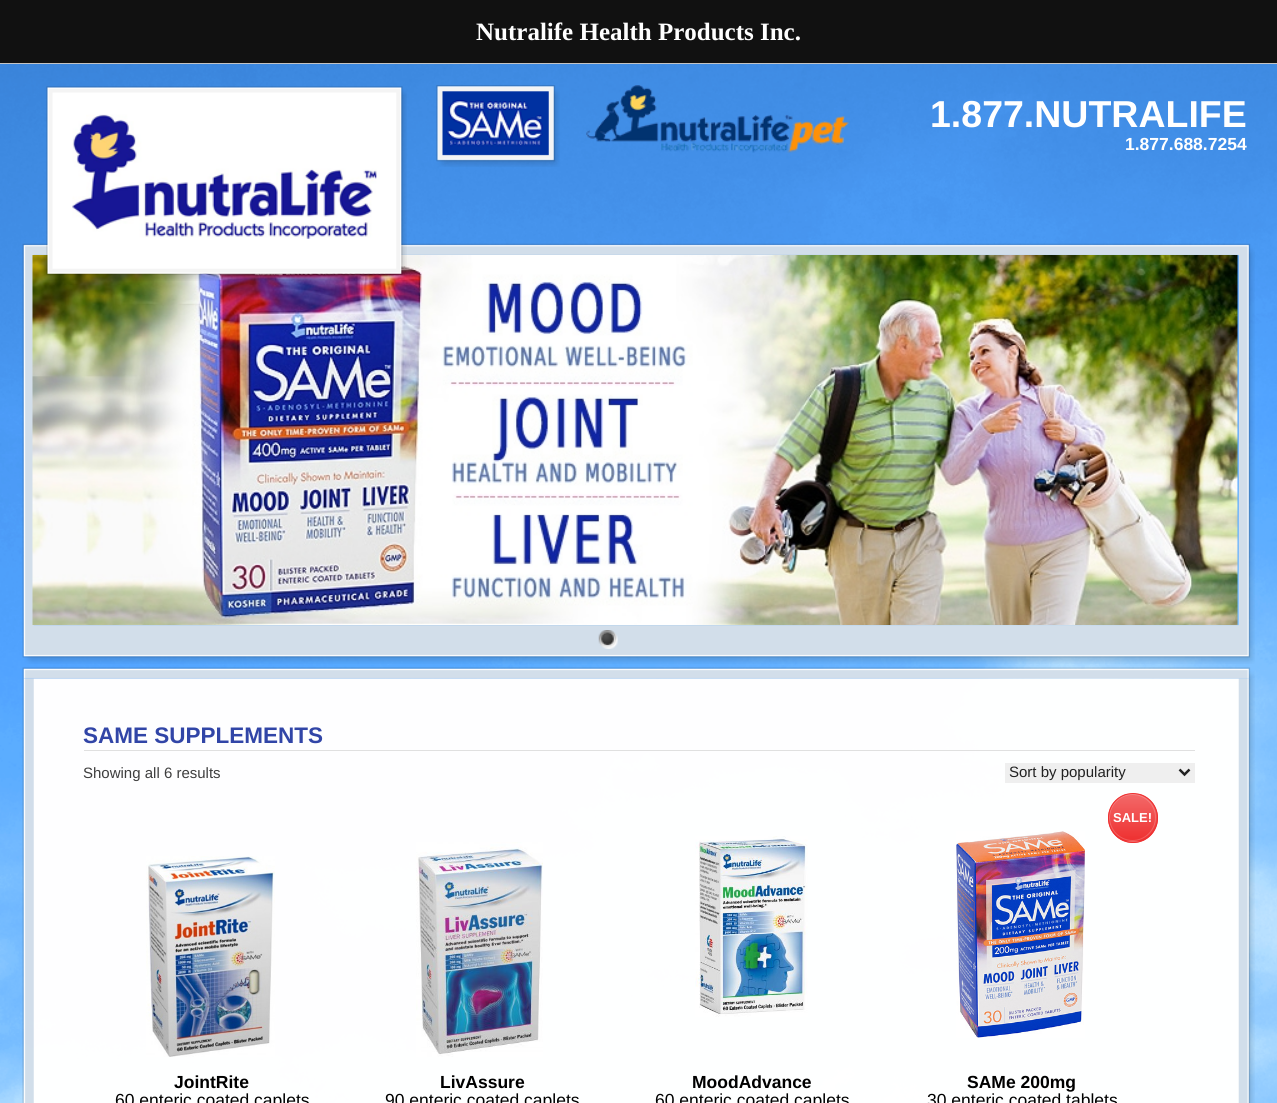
#include <cairo.h>
#include <math.h>
#include <stddef.h>


static void round_rect(cairo_t *cr, double x, double y, double w, double h, double r) {
    cairo_new_sub_path(cr);
    cairo_arc(cr, x + w - r, y + h - r, r, 0, M_PI / 2);
    cairo_arc(cr, x + r, y + h - r, r, M_PI / 2, M_PI);
    cairo_arc(cr, x + r, y + r, r, M_PI, 1.5 * M_PI);
    cairo_arc(cr, x + w - r, y + r, r, 1.5 * M_PI, 2 * M_PI);
    cairo_close_path(cr);
}

static void picture(cairo_t *cr, const char *path, double x, double y, double w, double h) {
    cairo_surface_t *image = cairo_image_surface_create_from_png(path);
    cairo_save(cr);
    cairo_set_source_surface(cr, image, x, y);
    cairo_rectangle(cr, x, y, w, h);
    cairo_fill(cr);
    cairo_restore(cr);
    cairo_surface_destroy(image);
}

int main(void) {
    cairo_surface_t *surface = cairo_image_surface_create(CAIRO_FORMAT_RGB24, 1277, 1103);
    cairo_t *cr = cairo_create(surface);
    cairo_font_options_t *options = cairo_font_options_create();
    cairo_font_options_set_hint_metrics(options, CAIRO_HINT_METRICS_OFF);
    cairo_font_options_set_hint_style(options, CAIRO_HINT_STYLE_NONE);
    cairo_set_font_options(cr, options);
    cairo_set_miter_limit(cr, 4);
    cairo_pattern_t *gradient;
    cairo_set_source_rgb(cr, 1, 1, 1);
    cairo_paint(cr);
    picture(cr, "img1.png", 0, 64, 1277, 1039);
    cairo_set_source_rgb(cr, 0.769, 0.769, 0.769);
    cairo_rectangle(cr, 0, 63, 1277, 1);
    cairo_fill(cr);
    cairo_set_source_rgb(cr, 0.067, 0.067, 0.067);
    cairo_rectangle(cr, 0, 0, 1277, 63);
    cairo_fill(cr);
    cairo_select_font_face(cr, "Liberation Serif", CAIRO_FONT_SLANT_NORMAL, CAIRO_FONT_WEIGHT_BOLD);
    cairo_set_font_size(cr, 25);
    cairo_set_source_rgb(cr, 1, 1, 1);
    cairo_move_to(cr, 476, 40);
    cairo_show_text(cr, "Nutralife Health Products Inc.");
    picture(cr, "img5.png", 22, 243, 1233, 421);
    picture(cr, "img6.png", 32, 255, 1206, 370);
    picture(cr, "img2.png", 46, 86, 361, 195);
    picture(cr, "img3.png", 436, 85, 124, 82);
    picture(cr, "img4.png", 586, 85, 263, 68);
    cairo_select_font_face(cr, "Liberation Sans", CAIRO_FONT_SLANT_NORMAL, CAIRO_FONT_WEIGHT_BOLD);
    cairo_set_font_size(cr, 37.5);
    cairo_move_to(cr, 930, 127);
    cairo_show_text(cr, "1.877.NUTRALIFE");
    cairo_set_font_size(cr, 17.5);
    cairo_move_to(cr, 1125, 150);
    cairo_show_text(cr, "1.877.688.7254");
    picture(cr, "img7.png", 598, 630, 20, 19);
    picture(cr, "img8.png", 22, 667, 1233, 12);
    picture(cr, "img9.png", 22, 678, 1233, 425);
    cairo_set_source_rgb(cr, 0.878, 0.878, 0.878);
    cairo_rectangle(cr, 84, 750, 1111, 1);
    cairo_fill(cr);
    cairo_set_font_size(cr, 22.5);
    cairo_set_source_rgb(cr, 0.192, 0.271, 0.655);
    cairo_move_to(cr, 83, 743);
    cairo_show_text(cr, "SAME SUPPLEMENTS");
    cairo_select_font_face(cr, "Liberation Sans", CAIRO_FONT_SLANT_NORMAL, CAIRO_FONT_WEIGHT_NORMAL);
    cairo_set_font_size(cr, 15);
    cairo_set_source_rgb(cr, 0.243, 0.243, 0.243);
    cairo_move_to(cr, 83, 778);
    cairo_show_text(cr, "Showing all 6 results");
    cairo_set_source_rgb(cr, 0.937, 0.937, 0.937);
    cairo_rectangle(cr, 1005, 763, 190, 20);
    cairo_fill(cr);
    cairo_new_path(cr);
    cairo_move_to(cr, 1179.5, 769.5);
    cairo_line_to(cr, 1184.5, 774.5);
    cairo_line_to(cr, 1189.5, 769.5);
    cairo_set_source_rgb(cr, 0.133, 0.133, 0.133);
    cairo_set_line_width(cr, 2.5);
    cairo_stroke(cr);
    cairo_move_to(cr, 1009, 777);
    cairo_show_text(cr, "Sort by popularity");
    picture(cr, "img10.png", 146, 856, 129, 201);
    cairo_select_font_face(cr, "Liberation Sans", CAIRO_FONT_SLANT_NORMAL, CAIRO_FONT_WEIGHT_BOLD);
    cairo_set_font_size(cr, 17.5);
    cairo_set_source_rgb(cr, 0, 0, 0);
    cairo_move_to(cr, 174, 1088);
    cairo_show_text(cr, "JointRite");
    cairo_select_font_face(cr, "Liberation Sans", CAIRO_FONT_SLANT_NORMAL, CAIRO_FONT_WEIGHT_NORMAL);
    cairo_move_to(cr, 115, 1106);
    cairo_show_text(cr, "60 enteric coated caplets");
    picture(cr, "img11.png", 416, 842, 127, 215);
    cairo_select_font_face(cr, "Liberation Sans", CAIRO_FONT_SLANT_NORMAL, CAIRO_FONT_WEIGHT_BOLD);
    cairo_move_to(cr, 440, 1088);
    cairo_show_text(cr, "LivAssure");
    cairo_select_font_face(cr, "Liberation Sans", CAIRO_FONT_SLANT_NORMAL, CAIRO_FONT_WEIGHT_NORMAL);
    cairo_move_to(cr, 385, 1106);
    cairo_show_text(cr, "90 enteric coated caplets");
    picture(cr, "img12.png", 695, 836, 113, 181);
    cairo_select_font_face(cr, "Liberation Sans", CAIRO_FONT_SLANT_NORMAL, CAIRO_FONT_WEIGHT_BOLD);
    cairo_move_to(cr, 692, 1088);
    cairo_show_text(cr, "MoodAdvance");
    cairo_select_font_face(cr, "Liberation Sans", CAIRO_FONT_SLANT_NORMAL, CAIRO_FONT_WEIGHT_NORMAL);
    cairo_move_to(cr, 655, 1106);
    cairo_show_text(cr, "60 enteric coated caplets");
    cairo_save(cr);
    round_rect(cr, 1108, 793, 50, 50, 25);
    cairo_clip(cr);
    gradient = cairo_pattern_create_linear(1133, 794, 1133, 841);
    cairo_pattern_add_color_stop_rgba(gradient, 0, 0.953, 0.412, 0.412, 1);
    cairo_pattern_add_color_stop_rgba(gradient, 1, 0.933, 0.188, 0.188, 1);
    cairo_set_source(cr, gradient);
    cairo_pattern_destroy(gradient);
    cairo_rectangle(cr, 1108, 794, 50, 47);
    cairo_fill(cr);
    gradient = cairo_pattern_create_linear(1133, 841, 1133, 889);
    cairo_pattern_add_color_stop_rgba(gradient, 0, 0.953, 0.412, 0.412, 1);
    cairo_pattern_add_color_stop_rgba(gradient, 1, 0.933, 0.188, 0.188, 1);
    cairo_set_source(cr, gradient);
    cairo_pattern_destroy(gradient);
    cairo_rectangle(cr, 1123, 841, 20, 2);
    cairo_fill(cr);
    cairo_restore(cr);
    cairo_arc(cr, 1132.5, 817.5, 23, 0, 2 * M_PI);
    cairo_set_source_rgba(cr, 1, 1, 1, 0.2);
    cairo_set_line_width(cr, 1);
    cairo_stroke(cr);
    cairo_arc(cr, 1133, 818, 24.5, 0, 2 * M_PI);
    cairo_set_source_rgb(cr, 0.933, 0.188, 0.188);
    cairo_stroke(cr);
    cairo_select_font_face(cr, "Liberation Sans", CAIRO_FONT_SLANT_NORMAL, CAIRO_FONT_WEIGHT_BOLD);
    cairo_set_font_size(cr, 13);
    cairo_set_source_rgb(cr, 1, 1, 1);
    cairo_move_to(cr, 1113, 822);
    cairo_show_text(cr, "SALE!");
    picture(cr, "img13.png", 956, 831, 129, 207);
    cairo_set_font_size(cr, 17.5);
    cairo_set_source_rgb(cr, 0, 0, 0);
    cairo_move_to(cr, 967, 1088);
    cairo_show_text(cr, "SAMe 200mg");
    cairo_select_font_face(cr, "Liberation Sans", CAIRO_FONT_SLANT_NORMAL, CAIRO_FONT_WEIGHT_NORMAL);
    cairo_move_to(cr, 927, 1106);
    cairo_show_text(cr, "30 enteric coated tablets");
    cairo_surface_write_to_png(surface, "page.png");
    cairo_font_options_destroy(options);
    cairo_destroy(cr);
    cairo_surface_destroy(surface);
    return 0;
}
